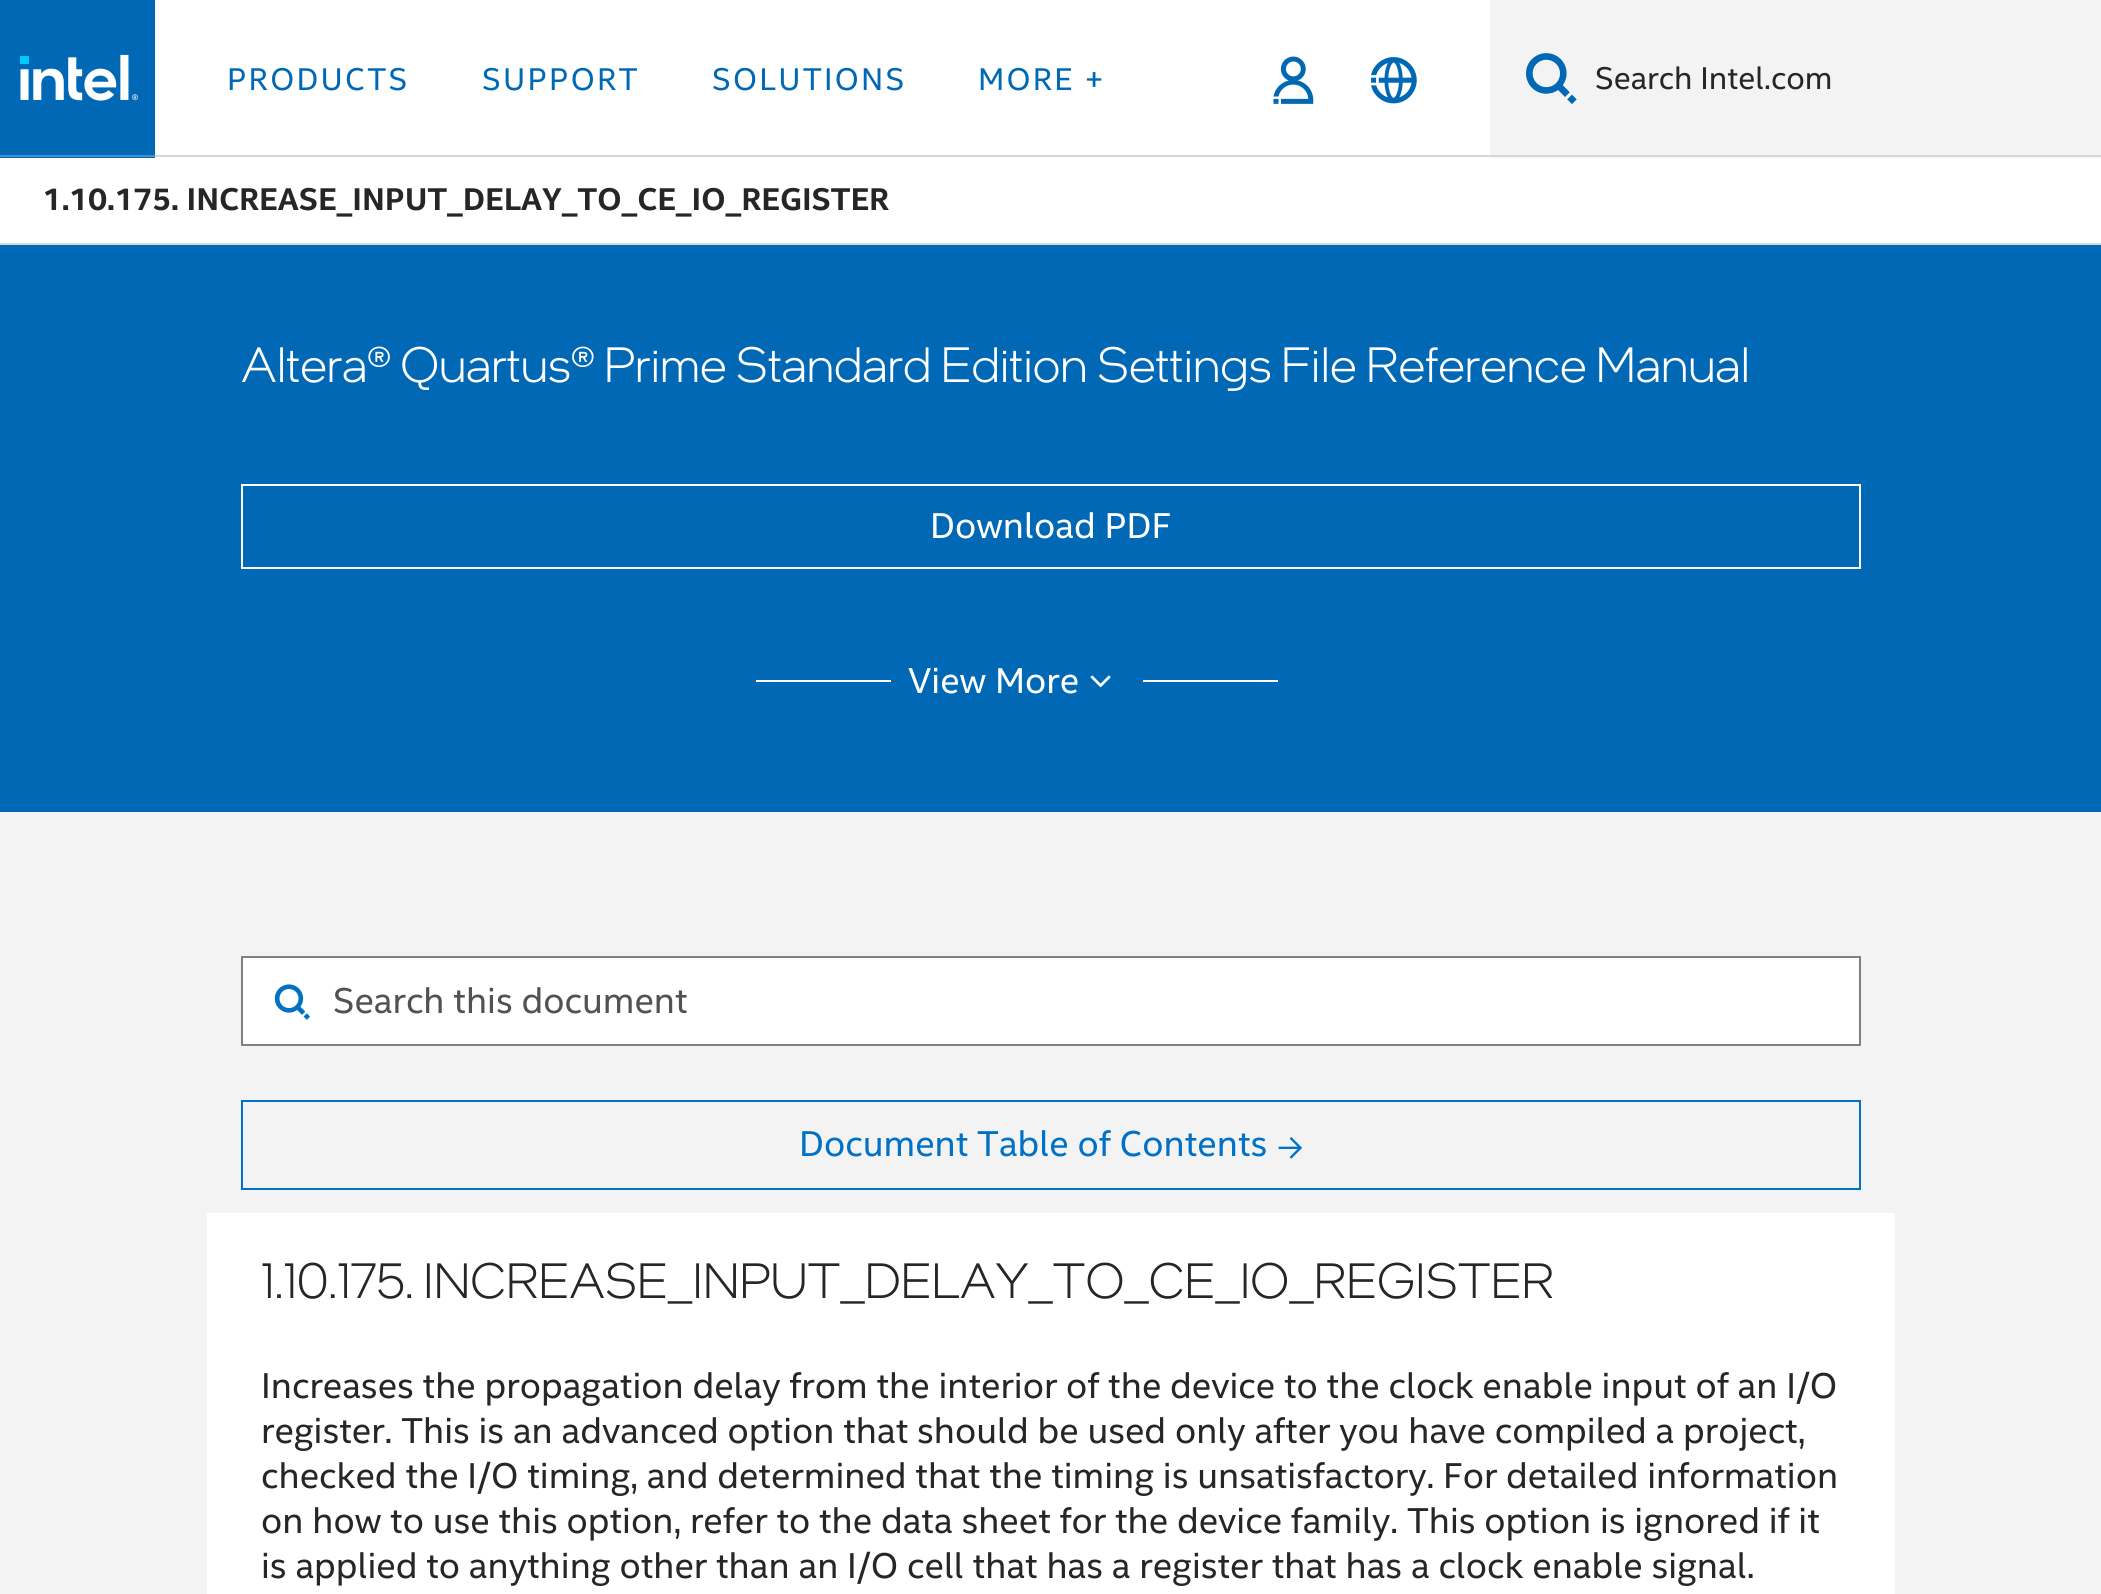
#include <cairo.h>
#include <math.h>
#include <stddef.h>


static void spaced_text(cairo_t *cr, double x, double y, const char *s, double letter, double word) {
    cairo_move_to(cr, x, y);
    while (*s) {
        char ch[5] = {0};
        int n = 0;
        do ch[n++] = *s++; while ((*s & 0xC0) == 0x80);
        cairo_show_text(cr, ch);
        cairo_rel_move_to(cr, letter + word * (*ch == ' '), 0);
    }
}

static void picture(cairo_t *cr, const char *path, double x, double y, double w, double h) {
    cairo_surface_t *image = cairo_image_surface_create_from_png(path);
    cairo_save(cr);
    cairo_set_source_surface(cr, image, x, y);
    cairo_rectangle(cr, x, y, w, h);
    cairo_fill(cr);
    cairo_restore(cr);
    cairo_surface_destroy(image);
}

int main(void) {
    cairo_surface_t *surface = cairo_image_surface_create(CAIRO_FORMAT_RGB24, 2101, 1594);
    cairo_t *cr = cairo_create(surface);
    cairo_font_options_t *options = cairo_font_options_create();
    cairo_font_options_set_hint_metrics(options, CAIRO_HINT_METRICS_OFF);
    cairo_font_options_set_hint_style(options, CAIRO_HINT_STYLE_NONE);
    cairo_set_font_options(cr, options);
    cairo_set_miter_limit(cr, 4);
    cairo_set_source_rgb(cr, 1, 1, 1);
    cairo_paint(cr);
    cairo_set_source_rgb(cr, 0.843, 0.843, 0.843);
    cairo_rectangle(cr, 155, 155, 1335, 2);
    cairo_fill(cr);
    cairo_set_source_rgb(cr, 0, 0.408, 0.71);
    cairo_rectangle(cr, 0, 0, 155, 158);
    cairo_fill(cr);
    picture(cr, "img1.png", 20, 54, 118, 47);
    cairo_set_source_rgb(cr, 0.259, 0.565, 0.796);
    cairo_rectangle(cr, 0, 155, 155, 2);
    cairo_fill(cr);
    cairo_select_font_face(cr, "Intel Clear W", CAIRO_FONT_SLANT_NORMAL, CAIRO_FONT_WEIGHT_NORMAL);
    cairo_set_font_size(cr, 31.5);
    cairo_set_source_rgb(cr, 0, 0.408, 0.71);
    spaced_text(cr, 227, 90, "PRODUCTS", 2.25, 0);
    spaced_text(cr, 482, 90, "SUPPORT", 2.25, 0);
    spaced_text(cr, 712, 90, "SOLUTIONS", 2.25, 0);
    spaced_text(cr, 978, 90, "MORE +", 2.25, 0);
    picture(cr, "img2.png", 1273, 56, 41, 48);
    picture(cr, "img3.png", 1371, 57, 46, 47);
    cairo_set_source_rgb(cr, 0.953, 0.953, 0.953);
    cairo_rectangle(cr, 1490, 0, 611, 158);
    cairo_fill(cr);
    cairo_set_source_rgb(cr, 0.843, 0.843, 0.843);
    cairo_rectangle(cr, 1490, 155, 611, 2);
    cairo_fill(cr);
    picture(cr, "img4.png", 1526, 53, 51, 51);
    cairo_set_source_rgb(cr, 0.149, 0.149, 0.149);
    cairo_move_to(cr, 1595, 89);
    cairo_show_text(cr, "Search Intel.com");
    cairo_set_source_rgb(cr, 0.843, 0.843, 0.843);
    cairo_rectangle(cr, 0, 243, 2101, 2);
    cairo_fill(cr);
    cairo_select_font_face(cr, "Intel Clear W", CAIRO_FONT_SLANT_NORMAL, CAIRO_FONT_WEIGHT_BOLD);
    cairo_set_source_rgb(cr, 0.149, 0.149, 0.149);
    cairo_move_to(cr, 43, 210);
    cairo_show_text(cr, "1.10.175. INCREASE_INPUT_DELAY_TO_CE_IO_REGISTER");
    cairo_set_source_rgb(cr, 0, 0.408, 0.71);
    cairo_rectangle(cr, 0, 245, 2101, 567);
    cairo_fill(cr);
    cairo_select_font_face(cr, "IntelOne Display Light", CAIRO_FONT_SLANT_NORMAL, CAIRO_FONT_WEIGHT_NORMAL);
    cairo_set_font_size(cr, 49.5);
    cairo_set_source_rgb(cr, 1, 1, 1);
    cairo_move_to(cr, 241, 382);
    cairo_show_text(cr, "Altera® Quartus® Prime Standard Edition Settings File Reference Manual");
    cairo_rectangle(cr, 242, 485, 1618, 83);
    cairo_stroke(cr);
    cairo_select_font_face(cr, "Intel Clear W", CAIRO_FONT_SLANT_NORMAL, CAIRO_FONT_WEIGHT_NORMAL);
    cairo_set_font_size(cr, 36);
    cairo_move_to(cr, 930, 538);
    cairo_show_text(cr, "Download PDF");
    cairo_rectangle(cr, 756, 680, 135, 2);
    cairo_fill(cr);
    cairo_move_to(cr, 908, 693);
    cairo_show_text(cr, "View More");
    picture(cr, "img5.png", 1090, 675, 21, 13);
    cairo_rectangle(cr, 1143, 680, 135, 2);
    cairo_fill(cr);
    cairo_set_source_rgb(cr, 0.953, 0.953, 0.953);
    cairo_rectangle(cr, 0, 812, 2101, 782);
    cairo_fill(cr);
    cairo_set_source_rgb(cr, 1, 1, 1);
    cairo_rectangle(cr, 242, 957, 1618, 88);
    cairo_fill_preserve(cr);
    cairo_set_source_rgb(cr, 0.502, 0.502, 0.502);
    cairo_stroke(cr);
    picture(cr, "img6.png", 274, 984, 36, 36);
    cairo_set_source_rgb(cr, 0.322, 0.322, 0.322);
    cairo_move_to(cr, 333, 1013);
    cairo_show_text(cr, "Search this document");
    cairo_rectangle(cr, 242, 1101, 1618, 88);
    cairo_set_source_rgb(cr, 0, 0.443, 0.773);
    cairo_stroke(cr);
    cairo_move_to(cr, 799, 1156);
    cairo_show_text(cr, "Document Table of Contents");
    picture(cr, "img7.png", 1278, 1137, 24, 22);
    cairo_set_source_rgb(cr, 1, 1, 1);
    cairo_rectangle(cr, 207, 1213, 1688, 381);
    cairo_fill(cr);
    cairo_select_font_face(cr, "IntelOne Display Light", CAIRO_FONT_SLANT_NORMAL, CAIRO_FONT_WEIGHT_NORMAL);
    cairo_set_font_size(cr, 49.5);
    cairo_set_source_rgb(cr, 0.149, 0.149, 0.149);
    cairo_move_to(cr, 261, 1298);
    cairo_show_text(cr, "1.10.175. INCREASE_INPUT_DELAY_TO_CE_IO_REGISTER");
    cairo_select_font_face(cr, "Intel Clear W", CAIRO_FONT_SLANT_NORMAL, CAIRO_FONT_WEIGHT_NORMAL);
    cairo_set_font_size(cr, 36);
    cairo_move_to(cr, 261, 1398);
    cairo_show_text(cr, "Increases the propagation delay from the interior of the device to the clock enable input of an I/O");
    cairo_move_to(cr, 261, 1443);
    cairo_show_text(cr, "register. This is an advanced option that should be used only after you have compiled a project,");
    cairo_move_to(cr, 261, 1488);
    cairo_show_text(cr, "checked the I/O timing, and determined that the timing is unsatisfactory. For detailed information");
    cairo_move_to(cr, 261, 1533);
    cairo_show_text(cr, "on how to use this option, refer to the data sheet for the device family. This option is ignored if it");
    cairo_move_to(cr, 261, 1578);
    cairo_show_text(cr, "is applied to anything other than an I/O cell that has a register that has a clock enable signal.");
    cairo_surface_write_to_png(surface, "page.png");
    cairo_font_options_destroy(options);
    cairo_destroy(cr);
    cairo_surface_destroy(surface);
    return 0;
}
